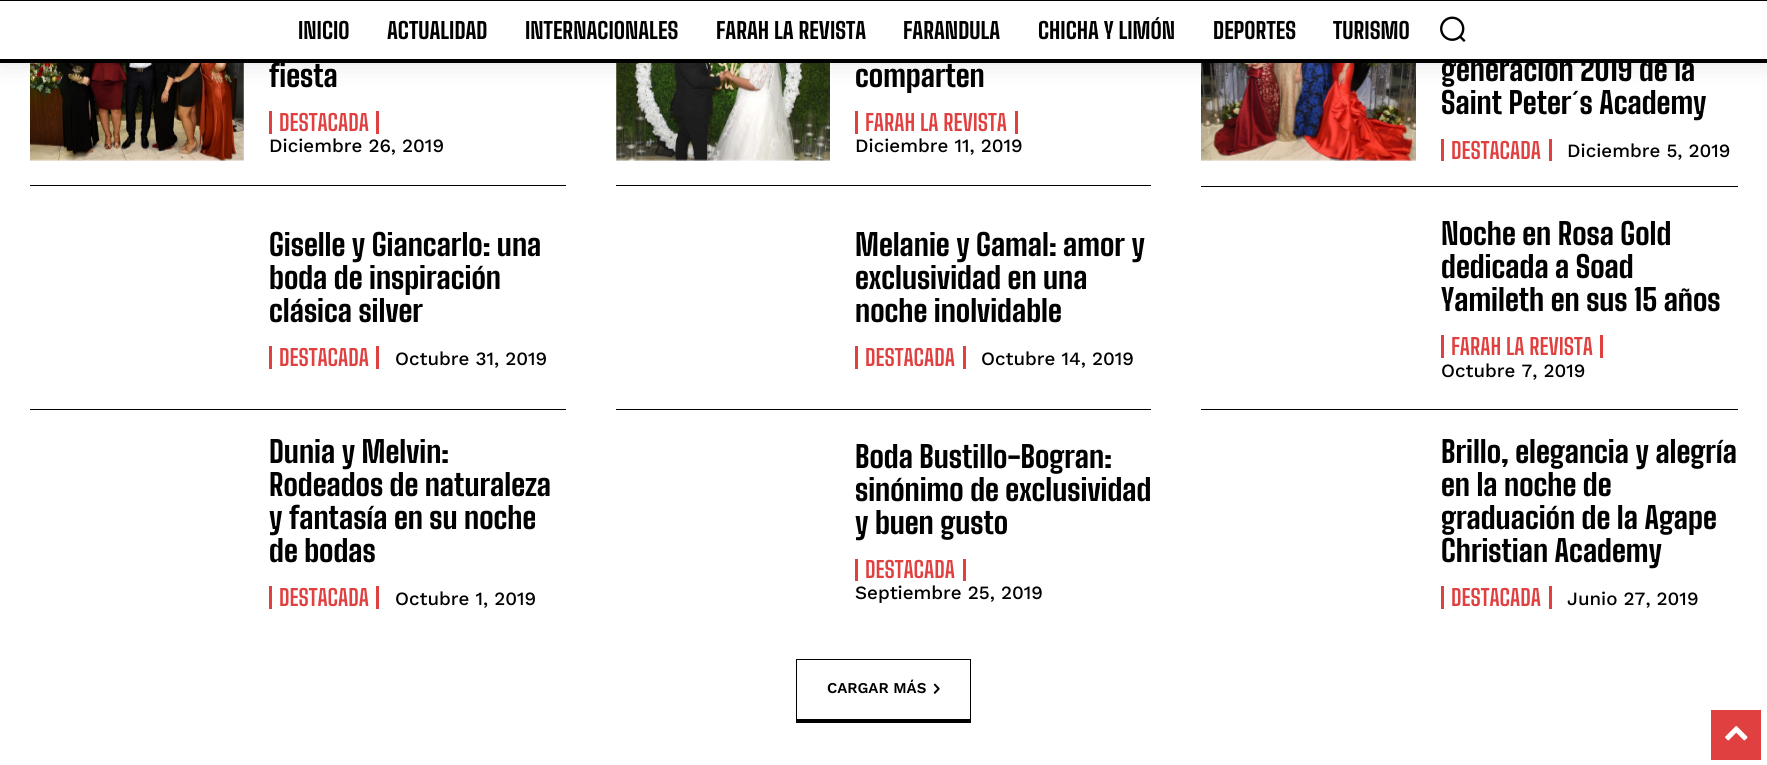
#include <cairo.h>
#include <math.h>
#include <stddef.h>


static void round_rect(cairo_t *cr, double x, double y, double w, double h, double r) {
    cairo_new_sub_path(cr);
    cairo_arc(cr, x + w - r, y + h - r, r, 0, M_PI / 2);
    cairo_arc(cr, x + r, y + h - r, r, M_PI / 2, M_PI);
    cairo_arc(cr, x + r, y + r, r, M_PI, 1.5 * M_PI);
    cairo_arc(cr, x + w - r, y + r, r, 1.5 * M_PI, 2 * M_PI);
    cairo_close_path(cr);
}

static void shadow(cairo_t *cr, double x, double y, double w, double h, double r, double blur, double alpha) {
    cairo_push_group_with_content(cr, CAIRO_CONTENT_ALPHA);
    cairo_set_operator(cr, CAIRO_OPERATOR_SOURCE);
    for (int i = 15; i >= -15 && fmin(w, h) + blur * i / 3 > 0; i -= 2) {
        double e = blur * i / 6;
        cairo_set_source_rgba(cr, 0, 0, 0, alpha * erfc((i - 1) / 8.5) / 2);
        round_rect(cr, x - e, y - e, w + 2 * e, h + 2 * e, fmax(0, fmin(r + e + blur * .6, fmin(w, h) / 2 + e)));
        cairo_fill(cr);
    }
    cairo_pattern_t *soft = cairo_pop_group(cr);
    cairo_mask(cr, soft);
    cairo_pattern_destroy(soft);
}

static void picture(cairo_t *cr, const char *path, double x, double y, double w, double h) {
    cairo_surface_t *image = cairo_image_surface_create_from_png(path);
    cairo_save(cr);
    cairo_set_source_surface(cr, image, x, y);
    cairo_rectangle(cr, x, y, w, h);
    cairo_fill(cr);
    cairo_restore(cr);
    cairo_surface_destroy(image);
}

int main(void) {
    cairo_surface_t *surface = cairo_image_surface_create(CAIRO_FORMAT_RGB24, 1767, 765);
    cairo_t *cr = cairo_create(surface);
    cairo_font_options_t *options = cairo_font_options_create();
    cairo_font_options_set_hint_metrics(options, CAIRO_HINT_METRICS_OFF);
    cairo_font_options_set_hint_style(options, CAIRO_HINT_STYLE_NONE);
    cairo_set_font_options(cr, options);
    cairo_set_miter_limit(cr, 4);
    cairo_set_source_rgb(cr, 1, 1, 1);
    cairo_paint(cr);
    cairo_set_source_rgb(cr, 0, 0, 0);
    cairo_rectangle(cr, 0, 0, 1767, 1);
    cairo_fill(cr);
    cairo_rectangle(cr, 0, 59, 1767, 4);
    cairo_fill(cr);
    cairo_select_font_face(cr, "Big Shoulders Text ExtraBold", CAIRO_FONT_SLANT_NORMAL, CAIRO_FONT_WEIGHT_NORMAL);
    cairo_set_font_size(cr, 30);
    cairo_move_to(cr, 1441, 81);
    cairo_show_text(cr, "generación 2019 de la");
    cairo_set_source_rgb(cr, 1, 1, 1);
    cairo_rectangle(cr, 1538, 56, 142, 3);
    cairo_fill(cr);
    picture(cr, "img2.png", 30, 63, 214, 98);
    picture(cr, "img3.png", 616, 63, 214, 98);
    picture(cr, "img4.png", 1201, 63, 215, 98);
    cairo_save(cr);
    cairo_set_fill_rule(cr, CAIRO_FILL_RULE_EVEN_ODD);
    cairo_new_path(cr);
    cairo_move_to(cr, 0, 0);
    cairo_line_to(cr, 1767, 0);
    cairo_line_to(cr, 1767, 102);
    cairo_line_to(cr, 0, 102);
    cairo_close_path(cr);
    cairo_move_to(cr, 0, 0);
    cairo_line_to(cr, 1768, 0);
    cairo_line_to(cr, 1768, 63);
    cairo_line_to(cr, 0, 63);
    cairo_close_path(cr);
    cairo_clip(cr);
    cairo_set_source_rgb(cr, 0, 0, 0);
    shadow(cr, 0, 0, 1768, 63, 0, 12.5, 0.12);
    cairo_restore(cr);
    cairo_set_font_size(cr, 22.5);
    cairo_set_source_rgb(cr, 0, 0, 0);
    cairo_move_to(cr, 298, 39);
    cairo_show_text(cr, "INICIO");
    cairo_move_to(cr, 387, 39);
    cairo_show_text(cr, "ACTUALIDAD");
    cairo_move_to(cr, 525, 39);
    cairo_show_text(cr, "INTERNACIONALES");
    cairo_move_to(cr, 716, 39);
    cairo_show_text(cr, "FARAH LA REVISTA");
    cairo_move_to(cr, 903, 39);
    cairo_show_text(cr, "FARANDULA");
    cairo_move_to(cr, 1038, 39);
    cairo_show_text(cr, "CHICHA Y LIMÓN");
    cairo_move_to(cr, 1213, 39);
    cairo_show_text(cr, "DEPORTES");
    cairo_move_to(cr, 1333, 39);
    cairo_show_text(cr, "TURISMO");
    picture(cr, "img1.png", 1440, 16, 26, 26);
    cairo_rectangle(cr, 30, 185, 536, 1);
    cairo_fill(cr);
    cairo_set_font_size(cr, 30);
    cairo_move_to(cr, 269, 87);
    cairo_show_text(cr, "fiesta");
    cairo_set_source_rgb(cr, 0.878, 0.251, 0.251);
    cairo_rectangle(cr, 376, 111, 3, 23);
    cairo_fill(cr);
    cairo_rectangle(cr, 269, 111, 3, 23);
    cairo_fill(cr);
    cairo_select_font_face(cr, "Big Shoulders Text", CAIRO_FONT_SLANT_NORMAL, CAIRO_FONT_WEIGHT_BOLD);
    cairo_set_font_size(cr, 22.5);
    cairo_move_to(cr, 279, 131);
    cairo_show_text(cr, "DESTACADA");
    cairo_select_font_face(cr, "Work Sans Medium", CAIRO_FONT_SLANT_NORMAL, CAIRO_FONT_WEIGHT_NORMAL);
    cairo_set_font_size(cr, 18.75);
    cairo_set_source_rgb(cr, 0, 0, 0);
    cairo_move_to(cr, 269, 152);
    cairo_show_text(cr, "Diciembre 26, 2019");
    cairo_rectangle(cr, 616, 185, 535, 1);
    cairo_fill(cr);
    cairo_select_font_face(cr, "Big Shoulders Text ExtraBold", CAIRO_FONT_SLANT_NORMAL, CAIRO_FONT_WEIGHT_NORMAL);
    cairo_set_font_size(cr, 30);
    cairo_move_to(cr, 855, 87);
    cairo_show_text(cr, "comparten");
    cairo_set_source_rgb(cr, 0.878, 0.251, 0.251);
    cairo_rectangle(cr, 1015, 111, 3, 23);
    cairo_fill(cr);
    cairo_rectangle(cr, 855, 111, 3, 23);
    cairo_fill(cr);
    cairo_select_font_face(cr, "Big Shoulders Text", CAIRO_FONT_SLANT_NORMAL, CAIRO_FONT_WEIGHT_BOLD);
    cairo_set_font_size(cr, 22.5);
    cairo_move_to(cr, 865, 131);
    cairo_show_text(cr, "FARAH LA REVISTA");
    cairo_select_font_face(cr, "Work Sans Medium", CAIRO_FONT_SLANT_NORMAL, CAIRO_FONT_WEIGHT_NORMAL);
    cairo_set_font_size(cr, 18.75);
    cairo_set_source_rgb(cr, 0, 0, 0);
    cairo_move_to(cr, 855, 152);
    cairo_show_text(cr, "Diciembre 11, 2019");
    cairo_rectangle(cr, 1201, 186, 537, 1);
    cairo_fill(cr);
    cairo_select_font_face(cr, "Big Shoulders Text ExtraBold", CAIRO_FONT_SLANT_NORMAL, CAIRO_FONT_WEIGHT_NORMAL);
    cairo_set_font_size(cr, 30);
    cairo_move_to(cr, 1441, 114);
    cairo_show_text(cr, "Saint Peter´s Academy");
    cairo_set_source_rgb(cr, 0.878, 0.251, 0.251);
    cairo_rectangle(cr, 1549, 139, 3, 22);
    cairo_fill(cr);
    cairo_rectangle(cr, 1441, 139, 3, 22);
    cairo_fill(cr);
    cairo_select_font_face(cr, "Big Shoulders Text", CAIRO_FONT_SLANT_NORMAL, CAIRO_FONT_WEIGHT_BOLD);
    cairo_set_font_size(cr, 22.5);
    cairo_move_to(cr, 1451, 159);
    cairo_show_text(cr, "DESTACADA");
    cairo_select_font_face(cr, "Work Sans Medium", CAIRO_FONT_SLANT_NORMAL, CAIRO_FONT_WEIGHT_NORMAL);
    cairo_set_font_size(cr, 18.75);
    cairo_set_source_rgb(cr, 0, 0, 0);
    cairo_move_to(cr, 1567, 157);
    cairo_show_text(cr, "Diciembre 5, 2019");
    cairo_rectangle(cr, 30, 409, 536, 1);
    cairo_fill(cr);
    cairo_select_font_face(cr, "Big Shoulders Text ExtraBold", CAIRO_FONT_SLANT_NORMAL, CAIRO_FONT_WEIGHT_NORMAL);
    cairo_set_font_size(cr, 30);
    cairo_move_to(cr, 269, 256);
    cairo_show_text(cr, "Giselle y Giancarlo: una");
    cairo_move_to(cr, 269, 289);
    cairo_show_text(cr, "boda de inspiración");
    cairo_move_to(cr, 269, 322);
    cairo_show_text(cr, "clásica silver");
    cairo_set_source_rgb(cr, 0.878, 0.251, 0.251);
    cairo_rectangle(cr, 376, 346, 3, 23);
    cairo_fill(cr);
    cairo_rectangle(cr, 269, 346, 3, 23);
    cairo_fill(cr);
    cairo_select_font_face(cr, "Big Shoulders Text", CAIRO_FONT_SLANT_NORMAL, CAIRO_FONT_WEIGHT_BOLD);
    cairo_set_font_size(cr, 22.5);
    cairo_move_to(cr, 279, 366);
    cairo_show_text(cr, "DESTACADA");
    cairo_select_font_face(cr, "Work Sans Medium", CAIRO_FONT_SLANT_NORMAL, CAIRO_FONT_WEIGHT_NORMAL);
    cairo_set_font_size(cr, 18.75);
    cairo_set_source_rgb(cr, 0, 0, 0);
    cairo_move_to(cr, 395, 365);
    cairo_show_text(cr, "Octubre 31, 2019");
    cairo_rectangle(cr, 616, 409, 535, 1);
    cairo_fill(cr);
    cairo_select_font_face(cr, "Big Shoulders Text ExtraBold", CAIRO_FONT_SLANT_NORMAL, CAIRO_FONT_WEIGHT_NORMAL);
    cairo_set_font_size(cr, 30);
    cairo_move_to(cr, 855, 256);
    cairo_show_text(cr, "Melanie y Gamal: amor y");
    cairo_move_to(cr, 855, 289);
    cairo_show_text(cr, "exclusividad en una");
    cairo_move_to(cr, 855, 322);
    cairo_show_text(cr, "noche inolvidable");
    cairo_set_source_rgb(cr, 0.878, 0.251, 0.251);
    cairo_rectangle(cr, 963, 346, 3, 23);
    cairo_fill(cr);
    cairo_rectangle(cr, 855, 346, 3, 23);
    cairo_fill(cr);
    cairo_select_font_face(cr, "Big Shoulders Text", CAIRO_FONT_SLANT_NORMAL, CAIRO_FONT_WEIGHT_BOLD);
    cairo_set_font_size(cr, 22.5);
    cairo_move_to(cr, 865, 366);
    cairo_show_text(cr, "DESTACADA");
    cairo_select_font_face(cr, "Work Sans Medium", CAIRO_FONT_SLANT_NORMAL, CAIRO_FONT_WEIGHT_NORMAL);
    cairo_set_font_size(cr, 18.75);
    cairo_set_source_rgb(cr, 0, 0, 0);
    cairo_move_to(cr, 981, 365);
    cairo_show_text(cr, "Octubre 14, 2019");
    cairo_rectangle(cr, 1201, 409, 537, 1);
    cairo_fill(cr);
    cairo_select_font_face(cr, "Big Shoulders Text ExtraBold", CAIRO_FONT_SLANT_NORMAL, CAIRO_FONT_WEIGHT_NORMAL);
    cairo_set_font_size(cr, 30);
    cairo_move_to(cr, 1441, 245);
    cairo_show_text(cr, "Noche en Rosa Gold");
    cairo_move_to(cr, 1441, 278);
    cairo_show_text(cr, "dedicada a Soad");
    cairo_move_to(cr, 1441, 311);
    cairo_show_text(cr, "Yamileth en sus 15 años");
    cairo_set_source_rgb(cr, 0.878, 0.251, 0.251);
    cairo_rectangle(cr, 1600, 335, 3, 23);
    cairo_fill(cr);
    cairo_rectangle(cr, 1441, 335, 3, 23);
    cairo_fill(cr);
    cairo_select_font_face(cr, "Big Shoulders Text", CAIRO_FONT_SLANT_NORMAL, CAIRO_FONT_WEIGHT_BOLD);
    cairo_set_font_size(cr, 22.5);
    cairo_move_to(cr, 1451, 355);
    cairo_show_text(cr, "FARAH LA REVISTA");
    cairo_select_font_face(cr, "Work Sans Medium", CAIRO_FONT_SLANT_NORMAL, CAIRO_FONT_WEIGHT_NORMAL);
    cairo_set_font_size(cr, 18.75);
    cairo_set_source_rgb(cr, 0, 0, 0);
    cairo_move_to(cr, 1441, 377);
    cairo_show_text(cr, "Octubre 7, 2019");
    cairo_select_font_face(cr, "Big Shoulders Text ExtraBold", CAIRO_FONT_SLANT_NORMAL, CAIRO_FONT_WEIGHT_NORMAL);
    cairo_set_font_size(cr, 30);
    cairo_move_to(cr, 269, 463);
    cairo_show_text(cr, "Dunia y Melvin:");
    cairo_move_to(cr, 269, 496);
    cairo_show_text(cr, "Rodeados de naturaleza");
    cairo_move_to(cr, 269, 529);
    cairo_show_text(cr, "y fantasía en su noche");
    cairo_move_to(cr, 269, 562);
    cairo_show_text(cr, "de bodas");
    cairo_set_source_rgb(cr, 0.878, 0.251, 0.251);
    cairo_rectangle(cr, 376, 586, 3, 23);
    cairo_fill(cr);
    cairo_rectangle(cr, 269, 586, 3, 23);
    cairo_fill(cr);
    cairo_select_font_face(cr, "Big Shoulders Text", CAIRO_FONT_SLANT_NORMAL, CAIRO_FONT_WEIGHT_BOLD);
    cairo_set_font_size(cr, 22.5);
    cairo_move_to(cr, 279, 606);
    cairo_show_text(cr, "DESTACADA");
    cairo_select_font_face(cr, "Work Sans Medium", CAIRO_FONT_SLANT_NORMAL, CAIRO_FONT_WEIGHT_NORMAL);
    cairo_set_font_size(cr, 18.75);
    cairo_set_source_rgb(cr, 0, 0, 0);
    cairo_move_to(cr, 395, 605);
    cairo_show_text(cr, "Octubre 1, 2019");
    cairo_select_font_face(cr, "Big Shoulders Text ExtraBold", CAIRO_FONT_SLANT_NORMAL, CAIRO_FONT_WEIGHT_NORMAL);
    cairo_set_font_size(cr, 30);
    cairo_move_to(cr, 855, 468);
    cairo_show_text(cr, "Boda Bustillo-Bogran:");
    cairo_move_to(cr, 855, 501);
    cairo_show_text(cr, "sinónimo de exclusividad");
    cairo_move_to(cr, 855, 534);
    cairo_show_text(cr, "y buen gusto");
    cairo_set_source_rgb(cr, 0.878, 0.251, 0.251);
    cairo_rectangle(cr, 963, 559, 3, 22);
    cairo_fill(cr);
    cairo_rectangle(cr, 855, 559, 3, 22);
    cairo_fill(cr);
    cairo_select_font_face(cr, "Big Shoulders Text", CAIRO_FONT_SLANT_NORMAL, CAIRO_FONT_WEIGHT_BOLD);
    cairo_set_font_size(cr, 22.5);
    cairo_move_to(cr, 865, 578);
    cairo_show_text(cr, "DESTACADA");
    cairo_select_font_face(cr, "Work Sans Medium", CAIRO_FONT_SLANT_NORMAL, CAIRO_FONT_WEIGHT_NORMAL);
    cairo_set_font_size(cr, 18.75);
    cairo_set_source_rgb(cr, 0, 0, 0);
    cairo_move_to(cr, 855, 599);
    cairo_show_text(cr, "Septiembre 25, 2019");
    cairo_select_font_face(cr, "Big Shoulders Text ExtraBold", CAIRO_FONT_SLANT_NORMAL, CAIRO_FONT_WEIGHT_NORMAL);
    cairo_set_font_size(cr, 30);
    cairo_move_to(cr, 1441, 463);
    cairo_show_text(cr, "Brillo, elegancia y alegría");
    cairo_move_to(cr, 1441, 496);
    cairo_show_text(cr, "en la noche de");
    cairo_move_to(cr, 1441, 529);
    cairo_show_text(cr, "graduación de la Agape");
    cairo_move_to(cr, 1441, 562);
    cairo_show_text(cr, "Christian Academy");
    cairo_set_source_rgb(cr, 0.878, 0.251, 0.251);
    cairo_rectangle(cr, 1549, 586, 3, 23);
    cairo_fill(cr);
    cairo_rectangle(cr, 1441, 586, 3, 23);
    cairo_fill(cr);
    cairo_select_font_face(cr, "Big Shoulders Text", CAIRO_FONT_SLANT_NORMAL, CAIRO_FONT_WEIGHT_BOLD);
    cairo_set_font_size(cr, 22.5);
    cairo_move_to(cr, 1451, 606);
    cairo_show_text(cr, "DESTACADA");
    cairo_select_font_face(cr, "Work Sans Medium", CAIRO_FONT_SLANT_NORMAL, CAIRO_FONT_WEIGHT_NORMAL);
    cairo_set_font_size(cr, 18.75);
    cairo_set_source_rgb(cr, 0, 0, 0);
    cairo_move_to(cr, 1567, 605);
    cairo_show_text(cr, "Junio 27, 2019");
    cairo_rectangle(cr, 796, 659, 175, 1);
    cairo_fill(cr);
    cairo_rectangle(cr, 970, 659, 1, 64);
    cairo_fill(cr);
    cairo_rectangle(cr, 796, 719, 175, 4);
    cairo_fill(cr);
    cairo_rectangle(cr, 796, 659, 1, 64);
    cairo_fill(cr);
    cairo_select_font_face(cr, "Work Sans SemiBold", CAIRO_FONT_SLANT_NORMAL, CAIRO_FONT_WEIGHT_NORMAL);
    cairo_set_font_size(cr, 15);
    cairo_move_to(cr, 827, 693);
    cairo_show_text(cr, "CARGAR MÁS");
    picture(cr, "img5.png", 933, 683, 7, 11);
    cairo_set_source_rgb(cr, 0.878, 0.251, 0.251);
    cairo_rectangle(cr, 1711, 710, 50, 50);
    cairo_fill(cr);
    picture(cr, "img6.png", 1725, 726, 23, 15);
    cairo_surface_write_to_png(surface, "page.png");
    cairo_font_options_destroy(options);
    cairo_destroy(cr);
    cairo_surface_destroy(surface);
    return 0;
}
